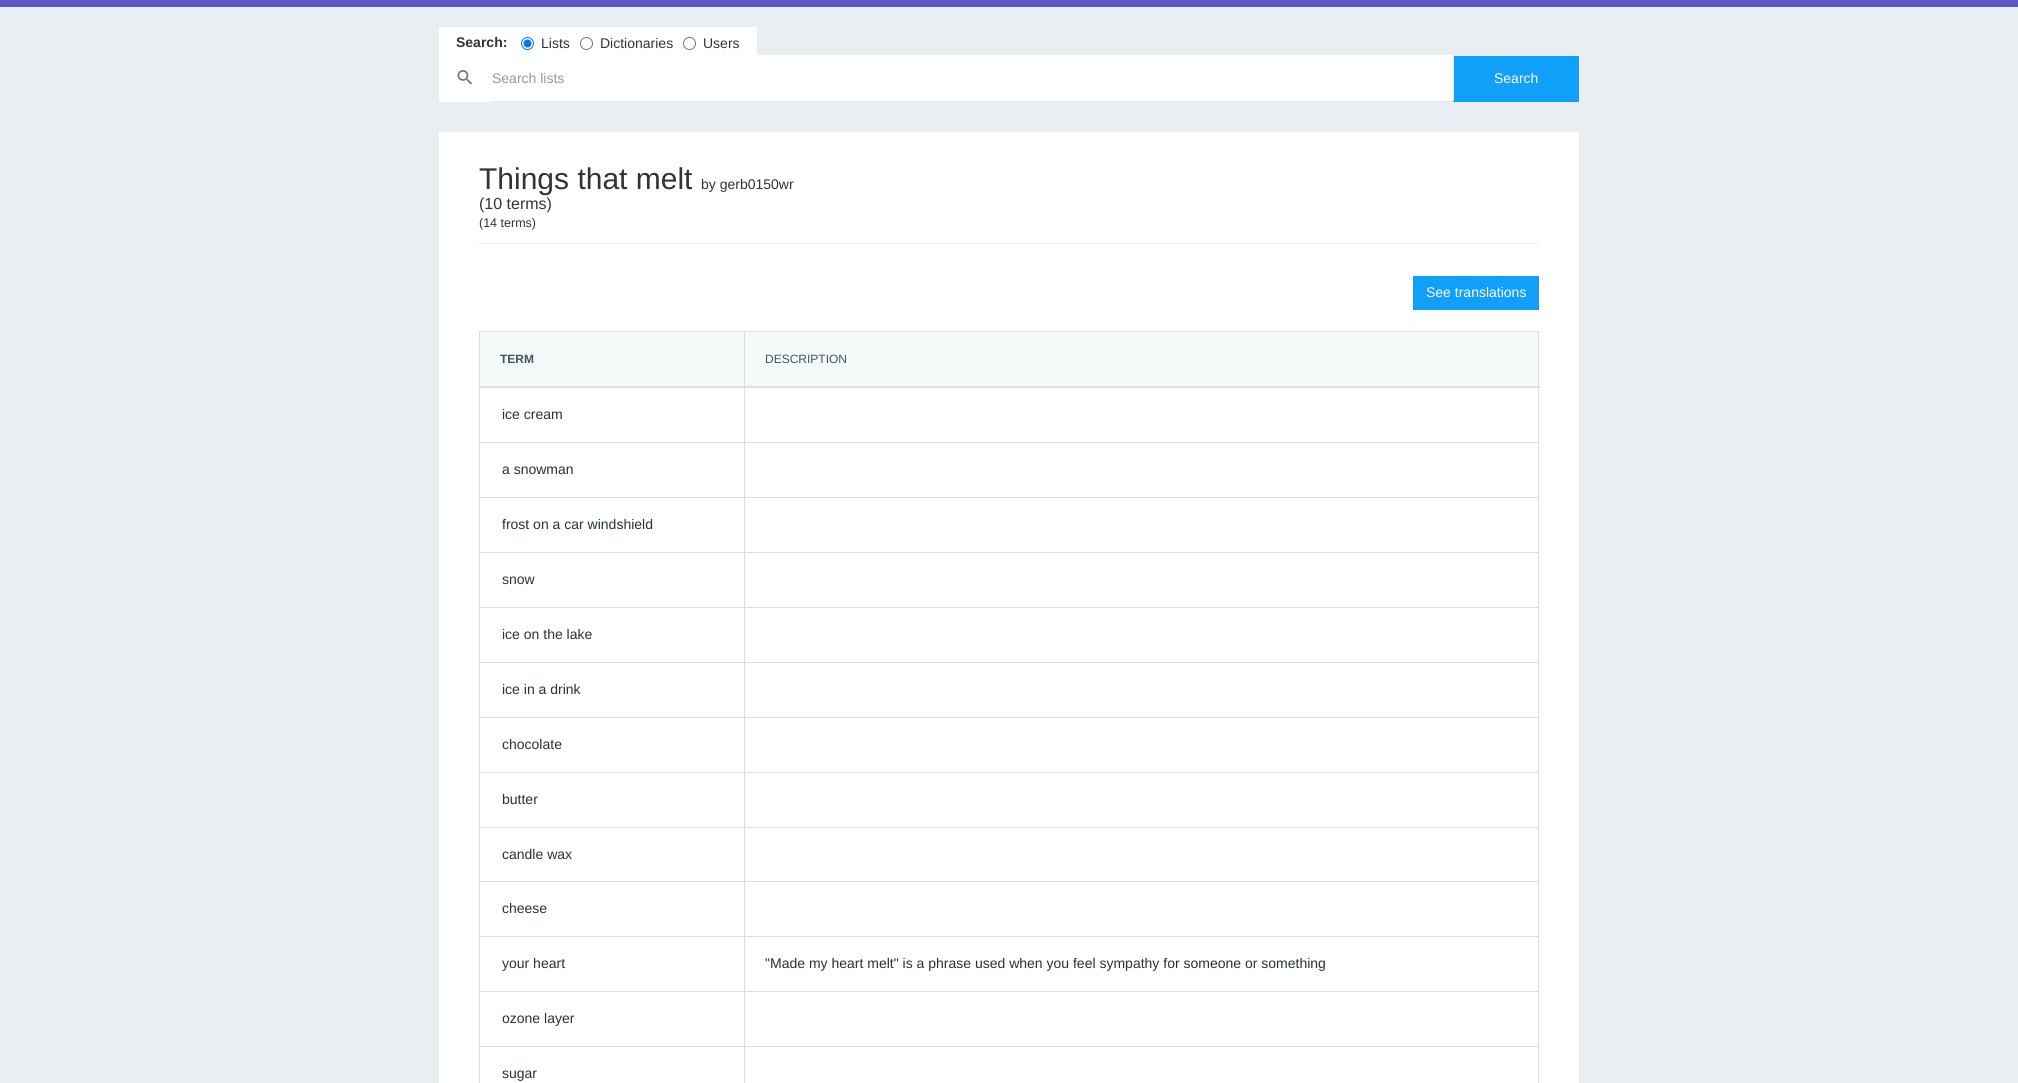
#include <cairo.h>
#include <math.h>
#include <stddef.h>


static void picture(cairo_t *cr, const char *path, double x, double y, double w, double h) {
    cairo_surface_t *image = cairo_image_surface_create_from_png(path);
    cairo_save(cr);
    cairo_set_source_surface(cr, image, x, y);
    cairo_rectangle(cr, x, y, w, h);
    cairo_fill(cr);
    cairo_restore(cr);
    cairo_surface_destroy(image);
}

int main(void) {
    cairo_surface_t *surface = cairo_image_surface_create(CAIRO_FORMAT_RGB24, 2018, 1083);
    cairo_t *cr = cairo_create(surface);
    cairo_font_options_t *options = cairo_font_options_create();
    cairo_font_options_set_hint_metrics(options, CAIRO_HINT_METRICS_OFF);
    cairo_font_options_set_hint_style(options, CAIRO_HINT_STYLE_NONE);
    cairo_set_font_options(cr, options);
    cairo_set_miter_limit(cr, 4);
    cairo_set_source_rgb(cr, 0.91, 0.933, 0.945);
    cairo_paint(cr);
    cairo_set_source_rgb(cr, 0.369, 0.345, 0.78);
    cairo_rectangle(cr, 0, 0, 2018, 7);
    cairo_fill(cr);
    cairo_set_source_rgb(cr, 1, 1, 1);
    cairo_rectangle(cr, 439, 27, 318, 28);
    cairo_fill(cr);
    cairo_select_font_face(cr, "Liberation Sans", CAIRO_FONT_SLANT_NORMAL, CAIRO_FONT_WEIGHT_BOLD);
    cairo_set_font_size(cr, 14);
    cairo_set_source_rgb(cr, 0.2, 0.2, 0.2);
    cairo_move_to(cr, 456, 47);
    cairo_show_text(cr, "Search:");
    cairo_new_path(cr);
    cairo_arc(cr, 527.5, 43.5, 6, 0, 2 * M_PI);
    cairo_set_source_rgb(cr, 0, 0.459, 1);
    cairo_set_line_width(cr, 1);
    cairo_stroke(cr);
    cairo_arc(cr, 527.5, 43.5, 4, 0, 2 * M_PI);
    cairo_fill(cr);
    cairo_select_font_face(cr, "Liberation Sans", CAIRO_FONT_SLANT_NORMAL, CAIRO_FONT_WEIGHT_NORMAL);
    cairo_set_source_rgb(cr, 0.2, 0.2, 0.2);
    cairo_move_to(cr, 541, 48);
    cairo_show_text(cr, "Lists");
    cairo_new_path(cr);
    cairo_arc(cr, 586.5, 43.5, 6, 0, 2 * M_PI);
    cairo_set_source_rgb(cr, 0.463, 0.463, 0.463);
    cairo_stroke(cr);
    cairo_set_source_rgb(cr, 0.2, 0.2, 0.2);
    cairo_move_to(cr, 600, 48);
    cairo_show_text(cr, "Dictionaries");
    cairo_new_path(cr);
    cairo_arc(cr, 689.5, 43.5, 6, 0, 2 * M_PI);
    cairo_set_source_rgb(cr, 0.463, 0.463, 0.463);
    cairo_stroke(cr);
    cairo_set_source_rgb(cr, 0.2, 0.2, 0.2);
    cairo_move_to(cr, 703, 48);
    cairo_show_text(cr, "Users");
    cairo_set_source_rgb(cr, 1, 1, 1);
    cairo_rectangle(cr, 439, 55, 52, 47);
    cairo_fill(cr);
    picture(cr, "img1.png", 457, 70, 15, 15);
    cairo_rectangle(cr, 491, 55, 962, 45);
    cairo_fill(cr);
    cairo_set_source_rgb(cr, 0.067, 0.627, 0.973);
    cairo_rectangle(cr, 1453, 56, 126, 46);
    cairo_fill(cr);
    cairo_set_source_rgb(cr, 0.929, 0.933, 0.933);
    cairo_rectangle(cr, 1453, 55, 1, 46);
    cairo_fill(cr);
    cairo_set_source_rgb(cr, 1, 1, 1);
    cairo_rectangle(cr, 491, 100, 963, 1);
    cairo_fill(cr);
    cairo_set_source_rgb(cr, 0.6, 0.6, 0.6);
    cairo_move_to(cr, 492, 83);
    cairo_show_text(cr, "Search lists");
    cairo_set_source_rgb(cr, 1, 1, 1);
    cairo_move_to(cr, 1494, 83);
    cairo_show_text(cr, "Search");
    cairo_rectangle(cr, 439, 132, 1140, 951);
    cairo_fill(cr);
    cairo_set_source_rgb(cr, 0.929, 0.933, 0.933);
    cairo_rectangle(cr, 479, 243, 1060, 1);
    cairo_fill(cr);
    cairo_set_font_size(cr, 30);
    cairo_set_source_rgb(cr, 0.2, 0.2, 0.2);
    cairo_move_to(cr, 479, 189);
    cairo_show_text(cr, "Things that melt");
    cairo_set_font_size(cr, 14);
    cairo_move_to(cr, 701, 189);
    cairo_show_text(cr, "by gerb0150wr");
    cairo_set_font_size(cr, 16);
    cairo_move_to(cr, 479, 209);
    cairo_show_text(cr, "(10 terms)");
    cairo_set_font_size(cr, 12.5);
    cairo_move_to(cr, 479, 227);
    cairo_show_text(cr, "(14 terms)");
    cairo_set_source_rgb(cr, 0.067, 0.627, 0.973);
    cairo_rectangle(cr, 1413, 276, 126, 34);
    cairo_fill(cr);
    cairo_set_font_size(cr, 14);
    cairo_set_source_rgb(cr, 1, 1, 1);
    cairo_move_to(cr, 1426, 297);
    cairo_show_text(cr, "See translations");
    cairo_set_source_rgb(cr, 0.867, 0.867, 0.867);
    cairo_rectangle(cr, 479, 331, 1060, 1);
    cairo_fill(cr);
    cairo_rectangle(cr, 1538, 331, 1, 752);
    cairo_fill(cr);
    cairo_rectangle(cr, 479, 331, 1, 752);
    cairo_fill(cr);
    cairo_set_source_rgb(cr, 0.957, 0.973, 0.976);
    cairo_rectangle(cr, 480, 332, 264, 54);
    cairo_fill(cr);
    cairo_select_font_face(cr, "Liberation Sans", CAIRO_FONT_SLANT_NORMAL, CAIRO_FONT_WEIGHT_BOLD);
    cairo_set_font_size(cr, 12);
    cairo_set_source_rgb(cr, 0.255, 0.329, 0.369);
    cairo_move_to(cr, 500, 363);
    cairo_show_text(cr, "TERM");
    cairo_set_source_rgb(cr, 0.957, 0.973, 0.976);
    cairo_rectangle(cr, 745, 332, 793, 54);
    cairo_fill(cr);
    cairo_set_source_rgb(cr, 0.867, 0.867, 0.867);
    cairo_rectangle(cr, 744, 442, 795, 1);
    cairo_fill(cr);
    cairo_rectangle(cr, 744, 497, 795, 1);
    cairo_fill(cr);
    cairo_rectangle(cr, 744, 552, 795, 1);
    cairo_fill(cr);
    cairo_rectangle(cr, 744, 607, 795, 1);
    cairo_fill(cr);
    cairo_rectangle(cr, 744, 662, 795, 1);
    cairo_fill(cr);
    cairo_rectangle(cr, 744, 717, 795, 1);
    cairo_fill(cr);
    cairo_rectangle(cr, 744, 772, 795, 1);
    cairo_fill(cr);
    cairo_rectangle(cr, 744, 827, 795, 1);
    cairo_fill(cr);
    cairo_rectangle(cr, 744, 881, 795, 1);
    cairo_fill(cr);
    cairo_rectangle(cr, 744, 936, 795, 1);
    cairo_fill(cr);
    cairo_rectangle(cr, 744, 991, 795, 1);
    cairo_fill(cr);
    cairo_rectangle(cr, 744, 1046, 795, 1);
    cairo_fill(cr);
    cairo_rectangle(cr, 744, 1046, 1, 37);
    cairo_fill(cr);
    cairo_rectangle(cr, 479, 1046, 266, 1);
    cairo_fill(cr);
    cairo_rectangle(cr, 744, 991, 1, 56);
    cairo_fill(cr);
    cairo_rectangle(cr, 479, 991, 266, 1);
    cairo_fill(cr);
    cairo_rectangle(cr, 744, 936, 1, 56);
    cairo_fill(cr);
    cairo_rectangle(cr, 479, 936, 266, 1);
    cairo_fill(cr);
    cairo_rectangle(cr, 744, 881, 1, 56);
    cairo_fill(cr);
    cairo_rectangle(cr, 479, 881, 266, 1);
    cairo_fill(cr);
    cairo_rectangle(cr, 744, 827, 1, 55);
    cairo_fill(cr);
    cairo_rectangle(cr, 479, 827, 266, 1);
    cairo_fill(cr);
    cairo_rectangle(cr, 744, 772, 1, 56);
    cairo_fill(cr);
    cairo_rectangle(cr, 479, 772, 266, 1);
    cairo_fill(cr);
    cairo_rectangle(cr, 744, 717, 1, 56);
    cairo_fill(cr);
    cairo_rectangle(cr, 479, 717, 266, 1);
    cairo_fill(cr);
    cairo_rectangle(cr, 744, 662, 1, 56);
    cairo_fill(cr);
    cairo_rectangle(cr, 479, 662, 266, 1);
    cairo_fill(cr);
    cairo_rectangle(cr, 744, 607, 1, 56);
    cairo_fill(cr);
    cairo_rectangle(cr, 479, 607, 266, 1);
    cairo_fill(cr);
    cairo_rectangle(cr, 744, 552, 1, 56);
    cairo_fill(cr);
    cairo_rectangle(cr, 479, 552, 266, 1);
    cairo_fill(cr);
    cairo_rectangle(cr, 744, 497, 1, 56);
    cairo_fill(cr);
    cairo_rectangle(cr, 479, 497, 266, 1);
    cairo_fill(cr);
    cairo_rectangle(cr, 744, 442, 1, 56);
    cairo_fill(cr);
    cairo_rectangle(cr, 479, 442, 266, 1);
    cairo_fill(cr);
    cairo_rectangle(cr, 744, 331, 1, 112);
    cairo_fill(cr);
    cairo_rectangle(cr, 479, 386, 1061, 2);
    cairo_fill(cr);
    cairo_select_font_face(cr, "Liberation Sans", CAIRO_FONT_SLANT_NORMAL, CAIRO_FONT_WEIGHT_NORMAL);
    cairo_set_source_rgb(cr, 0.255, 0.329, 0.369);
    cairo_move_to(cr, 765, 363);
    cairo_show_text(cr, "DESCRIPTION");
    cairo_set_font_size(cr, 14);
    cairo_set_source_rgb(cr, 0.149, 0.196, 0.22);
    cairo_move_to(cr, 502, 419);
    cairo_show_text(cr, "ice cream");
    cairo_move_to(cr, 502, 474);
    cairo_show_text(cr, "a snowman");
    cairo_move_to(cr, 502, 529);
    cairo_show_text(cr, "frost on a car windshield");
    cairo_move_to(cr, 502, 584);
    cairo_show_text(cr, "snow");
    cairo_move_to(cr, 502, 639);
    cairo_show_text(cr, "ice on the lake");
    cairo_move_to(cr, 502, 694);
    cairo_show_text(cr, "ice in a drink");
    cairo_move_to(cr, 502, 749);
    cairo_show_text(cr, "chocolate");
    cairo_move_to(cr, 502, 804);
    cairo_show_text(cr, "butter");
    cairo_move_to(cr, 502, 859);
    cairo_show_text(cr, "candle wax");
    cairo_move_to(cr, 502, 913);
    cairo_show_text(cr, "cheese");
    cairo_move_to(cr, 502, 968);
    cairo_show_text(cr, "your heart");
    cairo_move_to(cr, 765, 968);
    cairo_show_text(cr, "\"Made my heart melt\" is a phrase used when you feel sympathy for someone or something");
    cairo_move_to(cr, 502, 1023);
    cairo_show_text(cr, "ozone layer");
    cairo_move_to(cr, 502, 1078);
    cairo_show_text(cr, "sugar");
    cairo_surface_write_to_png(surface, "page.png");
    cairo_font_options_destroy(options);
    cairo_destroy(cr);
    cairo_surface_destroy(surface);
    return 0;
}
